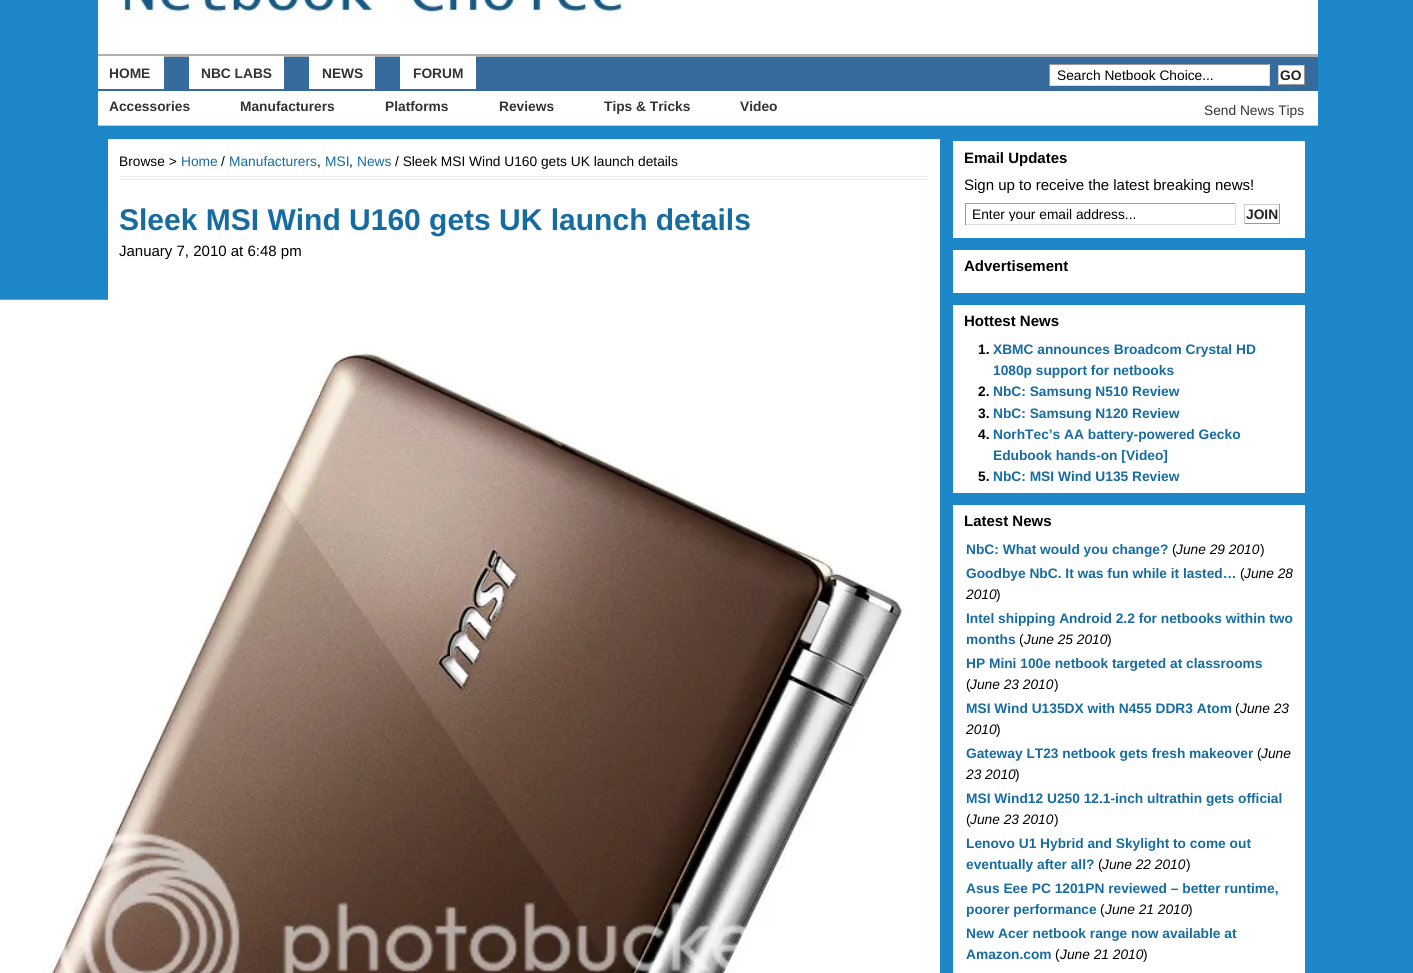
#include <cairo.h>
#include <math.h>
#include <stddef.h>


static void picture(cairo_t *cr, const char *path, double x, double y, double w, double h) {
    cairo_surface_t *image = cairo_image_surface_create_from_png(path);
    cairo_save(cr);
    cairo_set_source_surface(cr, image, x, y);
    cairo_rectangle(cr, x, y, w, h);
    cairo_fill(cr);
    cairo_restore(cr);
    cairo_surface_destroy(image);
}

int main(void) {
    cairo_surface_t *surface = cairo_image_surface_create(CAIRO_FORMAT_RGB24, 1413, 973);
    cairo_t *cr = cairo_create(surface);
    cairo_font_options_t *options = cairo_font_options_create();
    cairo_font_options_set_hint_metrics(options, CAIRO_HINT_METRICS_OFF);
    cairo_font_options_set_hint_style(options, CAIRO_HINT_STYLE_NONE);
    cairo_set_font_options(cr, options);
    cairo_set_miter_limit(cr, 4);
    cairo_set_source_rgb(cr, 0.114, 0.529, 0.788);
    cairo_paint(cr);
    cairo_set_source_rgb(cr, 1, 1, 1);
    cairo_rectangle(cr, 98, 0, 1220, 54);
    cairo_fill(cr);
    picture(cr, "img1.png", 121, 0, 502, 23);
    cairo_set_source_rgb(cr, 0.216, 0.42, 0.616);
    cairo_rectangle(cr, 98, 57, 1220, 34);
    cairo_fill(cr);
    cairo_set_source_rgb(cr, 0.686, 0.686, 0.686);
    cairo_rectangle(cr, 98, 54, 1220, 3);
    cairo_fill(cr);
    cairo_set_source_rgb(cr, 1, 1, 1);
    cairo_rectangle(cr, 98, 56, 66, 33);
    cairo_fill(cr);
    cairo_select_font_face(cr, "Liberation Sans", CAIRO_FONT_SLANT_NORMAL, CAIRO_FONT_WEIGHT_BOLD);
    cairo_set_font_size(cr, 13.75);
    cairo_set_source_rgb(cr, 0.2, 0.2, 0.2);
    cairo_move_to(cr, 109, 78);
    cairo_show_text(cr, "HOME");
    cairo_set_source_rgb(cr, 1, 1, 1);
    cairo_rectangle(cr, 189, 56, 95, 33);
    cairo_fill(cr);
    cairo_set_source_rgb(cr, 0.2, 0.2, 0.2);
    cairo_move_to(cr, 201, 78);
    cairo_show_text(cr, "NBC LABS");
    cairo_set_source_rgb(cr, 1, 1, 1);
    cairo_rectangle(cr, 309, 56, 66, 33);
    cairo_fill(cr);
    cairo_set_source_rgb(cr, 0.2, 0.2, 0.2);
    cairo_move_to(cr, 322, 78);
    cairo_show_text(cr, "NEWS");
    cairo_set_source_rgb(cr, 1, 1, 1);
    cairo_rectangle(cr, 400, 56, 76, 33);
    cairo_fill(cr);
    cairo_set_source_rgb(cr, 0.2, 0.2, 0.2);
    cairo_move_to(cr, 413, 78);
    cairo_show_text(cr, "FORUM");
    cairo_set_source_rgb(cr, 1, 1, 1);
    cairo_rectangle(cr, 1050, 65, 219, 20);
    cairo_fill(cr);
    cairo_set_source_rgb(cr, 0.6, 0.6, 0.6);
    cairo_rectangle(cr, 1049, 64, 221, 1);
    cairo_fill(cr);
    cairo_set_source_rgb(cr, 0.867, 0.867, 0.867);
    cairo_rectangle(cr, 1269, 64, 1, 22);
    cairo_fill(cr);
    cairo_rectangle(cr, 1049, 85, 221, 1);
    cairo_fill(cr);
    cairo_set_source_rgb(cr, 0.6, 0.6, 0.6);
    cairo_rectangle(cr, 1049, 64, 1, 22);
    cairo_fill(cr);
    cairo_select_font_face(cr, "Liberation Sans", CAIRO_FONT_SLANT_NORMAL, CAIRO_FONT_WEIGHT_NORMAL);
    cairo_set_source_rgb(cr, 0, 0, 0);
    cairo_move_to(cr, 1057, 80);
    cairo_show_text(cr, "Search Netbook Choice...");
    cairo_set_source_rgb(cr, 1, 1, 1);
    cairo_rectangle(cr, 1279, 66, 25, 18);
    cairo_fill(cr);
    cairo_set_source_rgb(cr, 0.8, 0.8, 0.8);
    cairo_rectangle(cr, 1278, 65, 27, 1);
    cairo_fill(cr);
    cairo_set_source_rgb(cr, 0.6, 0.6, 0.6);
    cairo_rectangle(cr, 1304, 65, 1, 20);
    cairo_fill(cr);
    cairo_rectangle(cr, 1278, 84, 27, 1);
    cairo_fill(cr);
    cairo_set_source_rgb(cr, 0.8, 0.8, 0.8);
    cairo_rectangle(cr, 1278, 65, 1, 20);
    cairo_fill(cr);
    cairo_select_font_face(cr, "Liberation Sans", CAIRO_FONT_SLANT_NORMAL, CAIRO_FONT_WEIGHT_BOLD);
    cairo_set_source_rgb(cr, 0.133, 0.133, 0.133);
    cairo_move_to(cr, 1280, 80);
    cairo_show_text(cr, "GO");
    cairo_set_source_rgb(cr, 1, 1, 1);
    cairo_rectangle(cr, 98, 91, 1220, 34);
    cairo_fill(cr);
    cairo_set_source_rgb(cr, 0.8, 0.8, 0.8);
    cairo_rectangle(cr, 98, 125, 1220, 1);
    cairo_fill(cr);
    cairo_set_source_rgb(cr, 0.2, 0.2, 0.2);
    cairo_move_to(cr, 109, 111);
    cairo_show_text(cr, "Accessories");
    cairo_move_to(cr, 240, 111);
    cairo_show_text(cr, "Manufacturers");
    cairo_move_to(cr, 385, 111);
    cairo_show_text(cr, "Platforms");
    cairo_move_to(cr, 499, 111);
    cairo_show_text(cr, "Reviews");
    cairo_move_to(cr, 604, 111);
    cairo_show_text(cr, "Tips & Tricks");
    cairo_move_to(cr, 740, 111);
    cairo_show_text(cr, "Video");
    cairo_select_font_face(cr, "Liberation Sans", CAIRO_FONT_SLANT_NORMAL, CAIRO_FONT_WEIGHT_NORMAL);
    cairo_move_to(cr, 1204, 115);
    cairo_show_text(cr, "Send News Tips");
    cairo_set_source_rgb(cr, 1, 1, 1);
    cairo_rectangle(cr, 108, 139, 832, 834);
    cairo_fill(cr);
    cairo_set_source_rgb(cr, 0.918, 0.918, 0.918);
    cairo_rectangle(cr, 120, 176, 808, 1);
    cairo_fill(cr);
    cairo_rectangle(cr, 120, 179, 808, 1);
    cairo_fill(cr);
    cairo_set_source_rgb(cr, 0, 0, 0);
    cairo_move_to(cr, 119, 166);
    cairo_show_text(cr, "Browse >");
    cairo_set_source_rgb(cr, 0.086, 0.424, 0.631);
    cairo_move_to(cr, 181, 166);
    cairo_show_text(cr, "Home");
    cairo_set_source_rgb(cr, 0, 0, 0);
    cairo_move_to(cr, 221, 166);
    cairo_show_text(cr, "/");
    cairo_set_source_rgb(cr, 0.086, 0.424, 0.631);
    cairo_move_to(cr, 229, 166);
    cairo_show_text(cr, "Manufacturers");
    cairo_set_source_rgb(cr, 0, 0, 0);
    cairo_move_to(cr, 317, 166);
    cairo_show_text(cr, ",");
    cairo_set_source_rgb(cr, 0.086, 0.424, 0.631);
    cairo_move_to(cr, 325, 166);
    cairo_show_text(cr, "MSI");
    cairo_set_source_rgb(cr, 0, 0, 0);
    cairo_move_to(cr, 349, 166);
    cairo_show_text(cr, ",");
    cairo_set_source_rgb(cr, 0.086, 0.424, 0.631);
    cairo_move_to(cr, 357, 166);
    cairo_show_text(cr, "News");
    cairo_set_source_rgb(cr, 0, 0, 0);
    cairo_move_to(cr, 395, 166);
    cairo_show_text(cr, "/ Sleek MSI Wind U160 gets UK launch details");
    cairo_select_font_face(cr, "Liberation Sans", CAIRO_FONT_SLANT_NORMAL, CAIRO_FONT_WEIGHT_BOLD);
    cairo_set_font_size(cr, 30);
    cairo_set_source_rgb(cr, 0.086, 0.424, 0.631);
    cairo_move_to(cr, 119, 230);
    cairo_show_text(cr, "Sleek MSI Wind U160 gets UK launch details");
    cairo_select_font_face(cr, "Liberation Sans", CAIRO_FONT_SLANT_NORMAL, CAIRO_FONT_WEIGHT_NORMAL);
    cairo_set_font_size(cr, 15);
    cairo_set_source_rgb(cr, 0, 0, 0);
    cairo_move_to(cr, 119, 256);
    cairo_show_text(cr, "January 7, 2010 at 6:48 pm");
    picture(cr, "img2.png", 0, 299, 905, 674);
    cairo_set_source_rgb(cr, 1, 1, 1);
    cairo_rectangle(cr, 953, 141, 352, 97);
    cairo_fill(cr);
    cairo_select_font_face(cr, "Liberation Sans", CAIRO_FONT_SLANT_NORMAL, CAIRO_FONT_WEIGHT_BOLD);
    cairo_set_source_rgb(cr, 0, 0, 0);
    cairo_move_to(cr, 964, 163);
    cairo_show_text(cr, "Email Updates");
    cairo_select_font_face(cr, "Liberation Sans", CAIRO_FONT_SLANT_NORMAL, CAIRO_FONT_WEIGHT_NORMAL);
    cairo_move_to(cr, 964, 190);
    cairo_show_text(cr, "Sign up to receive the latest breaking news!");
    cairo_set_source_rgb(cr, 0.6, 0.6, 0.6);
    cairo_rectangle(cr, 965, 203, 271, 1);
    cairo_fill(cr);
    cairo_set_source_rgb(cr, 0.867, 0.867, 0.867);
    cairo_rectangle(cr, 1235, 203, 1, 22);
    cairo_fill(cr);
    cairo_rectangle(cr, 965, 224, 271, 1);
    cairo_fill(cr);
    cairo_set_source_rgb(cr, 0.6, 0.6, 0.6);
    cairo_rectangle(cr, 965, 203, 1, 22);
    cairo_fill(cr);
    cairo_save(cr);
    cairo_rectangle(cr, 973, 206, 262, 15);
    cairo_clip(cr);
    cairo_set_font_size(cr, 13.75);
    cairo_set_source_rgb(cr, 0, 0, 0);
    cairo_move_to(cr, 972, 219);
    cairo_show_text(cr, "Enter your email address...");
    cairo_restore(cr);
    cairo_set_source_rgb(cr, 0.8, 0.8, 0.8);
    cairo_rectangle(cr, 1244, 204, 36, 1);
    cairo_fill(cr);
    cairo_set_source_rgb(cr, 0.6, 0.6, 0.6);
    cairo_rectangle(cr, 1279, 204, 1, 20);
    cairo_fill(cr);
    cairo_rectangle(cr, 1244, 223, 36, 1);
    cairo_fill(cr);
    cairo_set_source_rgb(cr, 0.8, 0.8, 0.8);
    cairo_rectangle(cr, 1244, 204, 1, 20);
    cairo_fill(cr);
    cairo_select_font_face(cr, "Liberation Sans", CAIRO_FONT_SLANT_NORMAL, CAIRO_FONT_WEIGHT_BOLD);
    cairo_set_font_size(cr, 13.75);
    cairo_set_source_rgb(cr, 0.133, 0.133, 0.133);
    cairo_move_to(cr, 1246, 219);
    cairo_show_text(cr, "JOIN");
    cairo_set_source_rgb(cr, 1, 1, 1);
    cairo_rectangle(cr, 953, 250, 352, 43);
    cairo_fill(cr);
    cairo_set_font_size(cr, 15);
    cairo_set_source_rgb(cr, 0, 0, 0);
    cairo_move_to(cr, 964, 271);
    cairo_show_text(cr, "Advertisement");
    cairo_set_source_rgb(cr, 1, 1, 1);
    cairo_rectangle(cr, 953, 305, 352, 188);
    cairo_fill(cr);
    cairo_set_source_rgb(cr, 0, 0, 0);
    cairo_move_to(cr, 964, 326);
    cairo_show_text(cr, "Hottest News");
    cairo_set_font_size(cr, 13.75);
    cairo_move_to(cr, 978, 354);
    cairo_show_text(cr, "1.");
    cairo_set_source_rgb(cr, 0.086, 0.424, 0.631);
    cairo_move_to(cr, 993, 354);
    cairo_show_text(cr, "XBMC announces Broadcom Crystal HD");
    cairo_move_to(cr, 993, 375);
    cairo_show_text(cr, "1080p support for netbooks");
    cairo_set_source_rgb(cr, 0, 0, 0);
    cairo_move_to(cr, 978, 396);
    cairo_show_text(cr, "2.");
    cairo_set_source_rgb(cr, 0.086, 0.424, 0.631);
    cairo_move_to(cr, 993, 396);
    cairo_show_text(cr, "NbC: Samsung N510 Review");
    cairo_set_source_rgb(cr, 0, 0, 0);
    cairo_move_to(cr, 978, 418);
    cairo_show_text(cr, "3.");
    cairo_set_source_rgb(cr, 0.086, 0.424, 0.631);
    cairo_move_to(cr, 993, 418);
    cairo_show_text(cr, "NbC: Samsung N120 Review");
    cairo_set_source_rgb(cr, 0, 0, 0);
    cairo_move_to(cr, 978, 439);
    cairo_show_text(cr, "4.");
    cairo_set_source_rgb(cr, 0.086, 0.424, 0.631);
    cairo_move_to(cr, 993, 439);
    cairo_show_text(cr, "NorhTec’s AA battery-powered Gecko");
    cairo_move_to(cr, 993, 460);
    cairo_show_text(cr, "Edubook hands-on [Video]");
    cairo_set_source_rgb(cr, 0, 0, 0);
    cairo_move_to(cr, 978, 481);
    cairo_show_text(cr, "5.");
    cairo_set_source_rgb(cr, 0.086, 0.424, 0.631);
    cairo_move_to(cr, 993, 481);
    cairo_show_text(cr, "NbC: MSI Wind U135 Review");
    cairo_set_source_rgb(cr, 1, 1, 1);
    cairo_rectangle(cr, 953, 505, 352, 468);
    cairo_fill(cr);
    cairo_set_font_size(cr, 15);
    cairo_set_source_rgb(cr, 0, 0, 0);
    cairo_move_to(cr, 964, 526);
    cairo_show_text(cr, "Latest News");
    cairo_set_font_size(cr, 13.75);
    cairo_set_source_rgb(cr, 0.086, 0.424, 0.631);
    cairo_move_to(cr, 966, 554);
    cairo_show_text(cr, "NbC: What would you change?");
    cairo_select_font_face(cr, "Liberation Sans", CAIRO_FONT_SLANT_NORMAL, CAIRO_FONT_WEIGHT_NORMAL);
    cairo_set_source_rgb(cr, 0, 0, 0);
    cairo_move_to(cr, 1172, 554);
    cairo_show_text(cr, "(");
    cairo_select_font_face(cr, "Liberation Sans", CAIRO_FONT_SLANT_ITALIC, CAIRO_FONT_WEIGHT_NORMAL);
    cairo_move_to(cr, 1176, 554);
    cairo_show_text(cr, "June 29 2010");
    cairo_select_font_face(cr, "Liberation Sans", CAIRO_FONT_SLANT_NORMAL, CAIRO_FONT_WEIGHT_NORMAL);
    cairo_move_to(cr, 1260, 554);
    cairo_show_text(cr, ")");
    cairo_select_font_face(cr, "Liberation Sans", CAIRO_FONT_SLANT_NORMAL, CAIRO_FONT_WEIGHT_BOLD);
    cairo_set_source_rgb(cr, 0.086, 0.424, 0.631);
    cairo_move_to(cr, 966, 578);
    cairo_show_text(cr, "Goodbye NbC. It was fun while it lasted…");
    cairo_select_font_face(cr, "Liberation Sans", CAIRO_FONT_SLANT_NORMAL, CAIRO_FONT_WEIGHT_NORMAL);
    cairo_set_source_rgb(cr, 0, 0, 0);
    cairo_move_to(cr, 1240, 578);
    cairo_show_text(cr, "(");
    cairo_select_font_face(cr, "Liberation Sans", CAIRO_FONT_SLANT_ITALIC, CAIRO_FONT_WEIGHT_NORMAL);
    cairo_move_to(cr, 1244, 578);
    cairo_show_text(cr, "June 28");
    cairo_move_to(cr, 966, 599);
    cairo_show_text(cr, "2010");
    cairo_select_font_face(cr, "Liberation Sans", CAIRO_FONT_SLANT_NORMAL, CAIRO_FONT_WEIGHT_NORMAL);
    cairo_move_to(cr, 996, 599);
    cairo_show_text(cr, ")");
    cairo_select_font_face(cr, "Liberation Sans", CAIRO_FONT_SLANT_NORMAL, CAIRO_FONT_WEIGHT_BOLD);
    cairo_set_source_rgb(cr, 0.086, 0.424, 0.631);
    cairo_move_to(cr, 966, 623);
    cairo_show_text(cr, "Intel shipping Android 2.2 for netbooks within two");
    cairo_move_to(cr, 966, 644);
    cairo_show_text(cr, "months");
    cairo_select_font_face(cr, "Liberation Sans", CAIRO_FONT_SLANT_NORMAL, CAIRO_FONT_WEIGHT_NORMAL);
    cairo_set_source_rgb(cr, 0, 0, 0);
    cairo_move_to(cr, 1019, 644);
    cairo_show_text(cr, "(");
    cairo_select_font_face(cr, "Liberation Sans", CAIRO_FONT_SLANT_ITALIC, CAIRO_FONT_WEIGHT_NORMAL);
    cairo_move_to(cr, 1024, 644);
    cairo_show_text(cr, "June 25 2010");
    cairo_select_font_face(cr, "Liberation Sans", CAIRO_FONT_SLANT_NORMAL, CAIRO_FONT_WEIGHT_NORMAL);
    cairo_move_to(cr, 1107, 644);
    cairo_show_text(cr, ")");
    cairo_select_font_face(cr, "Liberation Sans", CAIRO_FONT_SLANT_NORMAL, CAIRO_FONT_WEIGHT_BOLD);
    cairo_set_source_rgb(cr, 0.086, 0.424, 0.631);
    cairo_move_to(cr, 966, 668);
    cairo_show_text(cr, "HP Mini 100e netbook targeted at classrooms");
    cairo_select_font_face(cr, "Liberation Sans", CAIRO_FONT_SLANT_NORMAL, CAIRO_FONT_WEIGHT_NORMAL);
    cairo_set_source_rgb(cr, 0, 0, 0);
    cairo_move_to(cr, 966, 689);
    cairo_show_text(cr, "(");
    cairo_select_font_face(cr, "Liberation Sans", CAIRO_FONT_SLANT_ITALIC, CAIRO_FONT_WEIGHT_NORMAL);
    cairo_move_to(cr, 970, 689);
    cairo_show_text(cr, "June 23 2010");
    cairo_select_font_face(cr, "Liberation Sans", CAIRO_FONT_SLANT_NORMAL, CAIRO_FONT_WEIGHT_NORMAL);
    cairo_move_to(cr, 1054, 689);
    cairo_show_text(cr, ")");
    cairo_select_font_face(cr, "Liberation Sans", CAIRO_FONT_SLANT_NORMAL, CAIRO_FONT_WEIGHT_BOLD);
    cairo_set_source_rgb(cr, 0.086, 0.424, 0.631);
    cairo_move_to(cr, 966, 713);
    cairo_show_text(cr, "MSI Wind U135DX with N455 DDR3 Atom");
    cairo_select_font_face(cr, "Liberation Sans", CAIRO_FONT_SLANT_NORMAL, CAIRO_FONT_WEIGHT_NORMAL);
    cairo_set_source_rgb(cr, 0, 0, 0);
    cairo_move_to(cr, 1235, 713);
    cairo_show_text(cr, "(");
    cairo_select_font_face(cr, "Liberation Sans", CAIRO_FONT_SLANT_ITALIC, CAIRO_FONT_WEIGHT_NORMAL);
    cairo_move_to(cr, 1240, 713);
    cairo_show_text(cr, "June 23");
    cairo_move_to(cr, 966, 734);
    cairo_show_text(cr, "2010");
    cairo_select_font_face(cr, "Liberation Sans", CAIRO_FONT_SLANT_NORMAL, CAIRO_FONT_WEIGHT_NORMAL);
    cairo_move_to(cr, 996, 734);
    cairo_show_text(cr, ")");
    cairo_select_font_face(cr, "Liberation Sans", CAIRO_FONT_SLANT_NORMAL, CAIRO_FONT_WEIGHT_BOLD);
    cairo_set_source_rgb(cr, 0.086, 0.424, 0.631);
    cairo_move_to(cr, 966, 758);
    cairo_show_text(cr, "Gateway LT23 netbook gets fresh makeover");
    cairo_select_font_face(cr, "Liberation Sans", CAIRO_FONT_SLANT_NORMAL, CAIRO_FONT_WEIGHT_NORMAL);
    cairo_set_source_rgb(cr, 0, 0, 0);
    cairo_move_to(cr, 1257, 758);
    cairo_show_text(cr, "(");
    cairo_select_font_face(cr, "Liberation Sans", CAIRO_FONT_SLANT_ITALIC, CAIRO_FONT_WEIGHT_NORMAL);
    cairo_move_to(cr, 1261, 758);
    cairo_show_text(cr, "June");
    cairo_move_to(cr, 966, 779);
    cairo_show_text(cr, "23 2010");
    cairo_select_font_face(cr, "Liberation Sans", CAIRO_FONT_SLANT_NORMAL, CAIRO_FONT_WEIGHT_NORMAL);
    cairo_move_to(cr, 1015, 779);
    cairo_show_text(cr, ")");
    cairo_select_font_face(cr, "Liberation Sans", CAIRO_FONT_SLANT_NORMAL, CAIRO_FONT_WEIGHT_BOLD);
    cairo_set_source_rgb(cr, 0.086, 0.424, 0.631);
    cairo_move_to(cr, 966, 803);
    cairo_show_text(cr, "MSI Wind12 U250 12.1-inch ultrathin gets official");
    cairo_select_font_face(cr, "Liberation Sans", CAIRO_FONT_SLANT_NORMAL, CAIRO_FONT_WEIGHT_NORMAL);
    cairo_set_source_rgb(cr, 0, 0, 0);
    cairo_move_to(cr, 966, 824);
    cairo_show_text(cr, "(");
    cairo_select_font_face(cr, "Liberation Sans", CAIRO_FONT_SLANT_ITALIC, CAIRO_FONT_WEIGHT_NORMAL);
    cairo_move_to(cr, 970, 824);
    cairo_show_text(cr, "June 23 2010");
    cairo_select_font_face(cr, "Liberation Sans", CAIRO_FONT_SLANT_NORMAL, CAIRO_FONT_WEIGHT_NORMAL);
    cairo_move_to(cr, 1054, 824);
    cairo_show_text(cr, ")");
    cairo_select_font_face(cr, "Liberation Sans", CAIRO_FONT_SLANT_NORMAL, CAIRO_FONT_WEIGHT_BOLD);
    cairo_set_source_rgb(cr, 0.086, 0.424, 0.631);
    cairo_move_to(cr, 966, 848);
    cairo_show_text(cr, "Lenovo U1 Hybrid and Skylight to come out");
    cairo_move_to(cr, 966, 869);
    cairo_show_text(cr, "eventually after all?");
    cairo_select_font_face(cr, "Liberation Sans", CAIRO_FONT_SLANT_NORMAL, CAIRO_FONT_WEIGHT_NORMAL);
    cairo_set_source_rgb(cr, 0, 0, 0);
    cairo_move_to(cr, 1098, 869);
    cairo_show_text(cr, "(");
    cairo_select_font_face(cr, "Liberation Sans", CAIRO_FONT_SLANT_ITALIC, CAIRO_FONT_WEIGHT_NORMAL);
    cairo_move_to(cr, 1102, 869);
    cairo_show_text(cr, "June 22 2010");
    cairo_select_font_face(cr, "Liberation Sans", CAIRO_FONT_SLANT_NORMAL, CAIRO_FONT_WEIGHT_NORMAL);
    cairo_move_to(cr, 1186, 869);
    cairo_show_text(cr, ")");
    cairo_select_font_face(cr, "Liberation Sans", CAIRO_FONT_SLANT_NORMAL, CAIRO_FONT_WEIGHT_BOLD);
    cairo_set_source_rgb(cr, 0.086, 0.424, 0.631);
    cairo_move_to(cr, 966, 893);
    cairo_show_text(cr, "Asus Eee PC 1201PN reviewed – better runtime,");
    cairo_move_to(cr, 966, 914);
    cairo_show_text(cr, "poorer performance");
    cairo_select_font_face(cr, "Liberation Sans", CAIRO_FONT_SLANT_NORMAL, CAIRO_FONT_WEIGHT_NORMAL);
    cairo_set_source_rgb(cr, 0, 0, 0);
    cairo_move_to(cr, 1100, 914);
    cairo_show_text(cr, "(");
    cairo_select_font_face(cr, "Liberation Sans", CAIRO_FONT_SLANT_ITALIC, CAIRO_FONT_WEIGHT_NORMAL);
    cairo_move_to(cr, 1105, 914);
    cairo_show_text(cr, "June 21 2010");
    cairo_select_font_face(cr, "Liberation Sans", CAIRO_FONT_SLANT_NORMAL, CAIRO_FONT_WEIGHT_NORMAL);
    cairo_move_to(cr, 1188, 914);
    cairo_show_text(cr, ")");
    cairo_select_font_face(cr, "Liberation Sans", CAIRO_FONT_SLANT_NORMAL, CAIRO_FONT_WEIGHT_BOLD);
    cairo_set_source_rgb(cr, 0.086, 0.424, 0.631);
    cairo_move_to(cr, 966, 938);
    cairo_show_text(cr, "New Acer netbook range now available at");
    cairo_move_to(cr, 966, 959);
    cairo_show_text(cr, "Amazon.com");
    cairo_select_font_face(cr, "Liberation Sans", CAIRO_FONT_SLANT_NORMAL, CAIRO_FONT_WEIGHT_NORMAL);
    cairo_set_source_rgb(cr, 0, 0, 0);
    cairo_move_to(cr, 1055, 959);
    cairo_show_text(cr, "(");
    cairo_select_font_face(cr, "Liberation Sans", CAIRO_FONT_SLANT_ITALIC, CAIRO_FONT_WEIGHT_NORMAL);
    cairo_move_to(cr, 1060, 959);
    cairo_show_text(cr, "June 21 2010");
    cairo_select_font_face(cr, "Liberation Sans", CAIRO_FONT_SLANT_NORMAL, CAIRO_FONT_WEIGHT_NORMAL);
    cairo_move_to(cr, 1143, 959);
    cairo_show_text(cr, ")");
    cairo_surface_write_to_png(surface, "page.png");
    cairo_font_options_destroy(options);
    cairo_destroy(cr);
    cairo_surface_destroy(surface);
    return 0;
}
